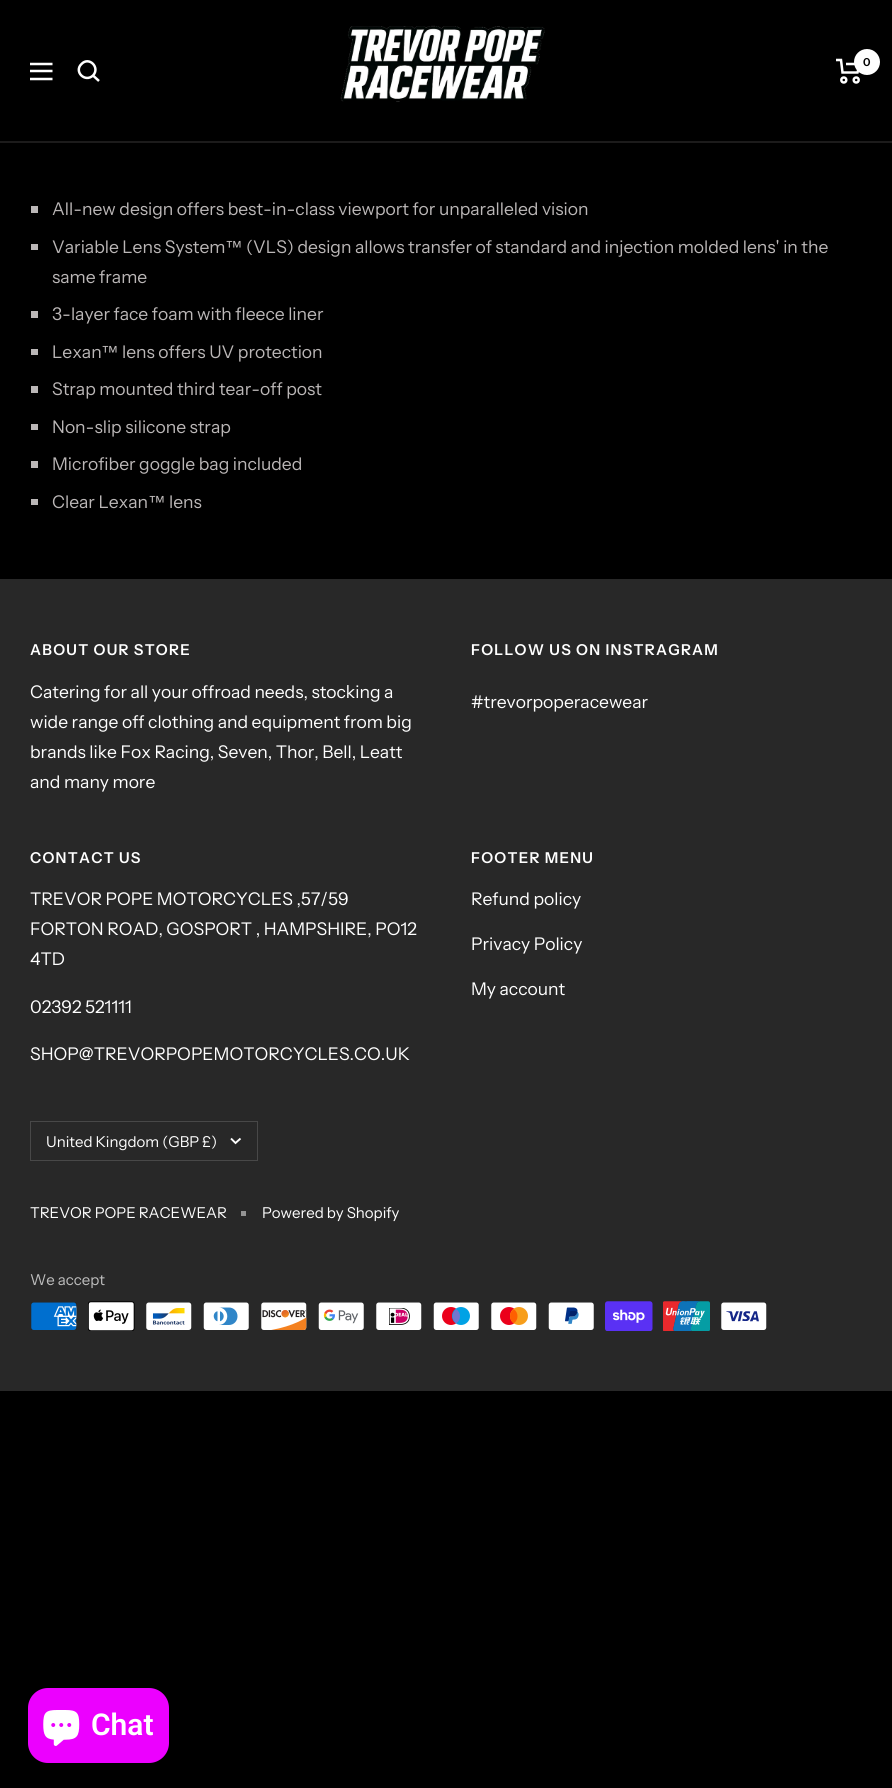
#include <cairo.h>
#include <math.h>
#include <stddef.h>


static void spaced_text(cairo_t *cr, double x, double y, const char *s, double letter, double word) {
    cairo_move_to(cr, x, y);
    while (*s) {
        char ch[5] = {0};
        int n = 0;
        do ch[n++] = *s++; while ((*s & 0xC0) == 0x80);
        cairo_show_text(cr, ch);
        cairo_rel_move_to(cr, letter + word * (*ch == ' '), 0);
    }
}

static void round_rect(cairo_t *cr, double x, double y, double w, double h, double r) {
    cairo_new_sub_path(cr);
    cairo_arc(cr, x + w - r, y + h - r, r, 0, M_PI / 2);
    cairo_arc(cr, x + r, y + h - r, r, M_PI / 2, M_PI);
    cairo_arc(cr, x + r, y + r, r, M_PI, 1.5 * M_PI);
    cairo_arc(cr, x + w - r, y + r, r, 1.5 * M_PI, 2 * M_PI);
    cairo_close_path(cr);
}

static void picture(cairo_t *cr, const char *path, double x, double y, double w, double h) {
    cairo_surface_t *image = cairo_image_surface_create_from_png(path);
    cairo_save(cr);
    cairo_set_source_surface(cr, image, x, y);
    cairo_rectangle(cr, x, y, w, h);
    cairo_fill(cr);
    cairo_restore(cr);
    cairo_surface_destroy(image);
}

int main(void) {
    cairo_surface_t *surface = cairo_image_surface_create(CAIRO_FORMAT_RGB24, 892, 1788);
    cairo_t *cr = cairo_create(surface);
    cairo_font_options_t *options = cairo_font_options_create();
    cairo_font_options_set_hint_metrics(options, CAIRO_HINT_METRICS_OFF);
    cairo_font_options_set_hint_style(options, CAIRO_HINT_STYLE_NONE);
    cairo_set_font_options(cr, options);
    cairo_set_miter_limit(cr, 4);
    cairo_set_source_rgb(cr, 0, 0, 0);
    cairo_paint(cr);
    cairo_set_source_rgb(cr, 0.11, 0.106, 0.106);
    cairo_new_path(cr);
    cairo_move_to(cr, 0, 141);
    cairo_line_to(cr, 0, 143);
    cairo_line_to(cr, 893, 143);
    cairo_line_to(cr, 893, 1);
    cairo_line_to(cr, 892, 1);
    cairo_line_to(cr, 892, 141);
    cairo_close_path(cr);
    cairo_fill(cr);
    cairo_new_path(cr);
    cairo_move_to(cr, 30, 64);
    cairo_line_to(cr, 52.5, 64);
    cairo_move_to(cr, 30, 79);
    cairo_line_to(cr, 52.5, 79);
    cairo_close_path(cr);
    cairo_move_to(cr, 30, 71);
    cairo_line_to(cr, 52.5, 71);
    cairo_close_path(cr);
    cairo_set_source_rgb(cr, 1, 1, 1);
    cairo_set_line_width(cr, 2.5);
    cairo_stroke(cr);
    cairo_new_path(cr);
    cairo_move_to(cr, 93, 75.5);
    cairo_curve_to(cr, 100.5, 67.5, 89, 56, 81.5, 64);
    cairo_curve_to(cr, 73.5, 71.5, 85, 83, 93, 75.5);
    cairo_close_path(cr);
    cairo_move_to(cr, 93, 75.5);
    cairo_line_to(cr, 99, 81);
    cairo_stroke(cr);
    picture(cr, "img1.png", 340, 25, 205, 77);
    cairo_new_path(cr);
    cairo_move_to(cr, 836, 60);
    cairo_line_to(cr, 841, 60);
    cairo_line_to(cr, 842.5, 72.5);
    cairo_line_to(cr, 857.5, 72.5);
    cairo_line_to(cr, 860, 64);
    cairo_line_to(cr, 846, 64);
    cairo_stroke(cr);
    cairo_arc(cr, 843.8, 80, 2.5, 0, 2 * M_PI);
    cairo_stroke(cr);
    cairo_arc(cr, 856.2, 80, 2.5, 0, 2 * M_PI);
    cairo_stroke(cr);
    cairo_arc(cr, 867, 62, 13, 0, 2 * M_PI);
    cairo_fill(cr);
    cairo_select_font_face(cr, "Instrument Sans SemiBold", CAIRO_FONT_SLANT_NORMAL, CAIRO_FONT_WEIGHT_NORMAL);
    cairo_set_font_size(cr, 11);
    cairo_set_source_rgb(cr, 0, 0, 0);
    cairo_move_to(cr, 863, 66);
    cairo_show_text(cr, "0");
    cairo_set_source_rgb(cr, 0.733, 0.718, 0.718);
    cairo_rectangle(cr, 31, 206, 7, 7);
    cairo_fill(cr);
    cairo_select_font_face(cr, "Instrument Sans", CAIRO_FONT_SLANT_NORMAL, CAIRO_FONT_WEIGHT_NORMAL);
    cairo_set_font_size(cr, 17.5);
    cairo_move_to(cr, 52, 215);
    cairo_show_text(cr, "All-new design offers best-in-class viewport for unparalleled vision");
    cairo_rectangle(cr, 31, 244, 7, 6);
    cairo_fill(cr);
    cairo_move_to(cr, 52, 253);
    cairo_show_text(cr, "Variable Lens System");
    cairo_select_font_face(cr, "Liberation Sans", CAIRO_FONT_SLANT_NORMAL, CAIRO_FONT_WEIGHT_NORMAL);
    cairo_move_to(cr, 225, 253);
    cairo_show_text(cr, "™");
    cairo_select_font_face(cr, "Instrument Sans", CAIRO_FONT_SLANT_NORMAL, CAIRO_FONT_WEIGHT_NORMAL);
    cairo_move_to(cr, 246, 253);
    cairo_show_text(cr, "(VLS) design allows transfer of standard and injection molded lens' in the");
    cairo_move_to(cr, 52, 283);
    cairo_show_text(cr, "same frame");
    cairo_rectangle(cr, 31, 311, 7, 7);
    cairo_fill(cr);
    cairo_move_to(cr, 52, 320);
    cairo_show_text(cr, "3-layer face foam with fleece liner");
    cairo_rectangle(cr, 31, 349, 7, 6);
    cairo_fill(cr);
    cairo_move_to(cr, 52, 358);
    cairo_show_text(cr, "Lexan");
    cairo_select_font_face(cr, "Liberation Sans", CAIRO_FONT_SLANT_NORMAL, CAIRO_FONT_WEIGHT_NORMAL);
    cairo_move_to(cr, 101, 358);
    cairo_show_text(cr, "™");
    cairo_select_font_face(cr, "Instrument Sans", CAIRO_FONT_SLANT_NORMAL, CAIRO_FONT_WEIGHT_NORMAL);
    cairo_move_to(cr, 122, 358);
    cairo_show_text(cr, "lens offers UV protection");
    cairo_rectangle(cr, 31, 386, 7, 7);
    cairo_fill(cr);
    cairo_move_to(cr, 52, 395);
    cairo_show_text(cr, "Strap mounted third tear-off post");
    cairo_rectangle(cr, 31, 424, 7, 6);
    cairo_fill(cr);
    cairo_move_to(cr, 52, 433);
    cairo_show_text(cr, "Non-slip silicone strap");
    cairo_rectangle(cr, 31, 461, 7, 7);
    cairo_fill(cr);
    cairo_move_to(cr, 52, 470);
    cairo_show_text(cr, "Microfiber goggle bag included");
    cairo_rectangle(cr, 31, 499, 7, 6);
    cairo_fill(cr);
    cairo_move_to(cr, 52, 508);
    cairo_show_text(cr, "Clear Lexan");
    cairo_select_font_face(cr, "Liberation Sans", CAIRO_FONT_SLANT_NORMAL, CAIRO_FONT_WEIGHT_NORMAL);
    cairo_move_to(cr, 148, 508);
    cairo_show_text(cr, "™");
    cairo_select_font_face(cr, "Instrument Sans", CAIRO_FONT_SLANT_NORMAL, CAIRO_FONT_WEIGHT_NORMAL);
    cairo_move_to(cr, 169, 508);
    cairo_show_text(cr, "lens");
    cairo_set_source_rgb(cr, 0.157, 0.157, 0.157);
    cairo_rectangle(cr, 0, 579, 892, 812);
    cairo_fill(cr);
    cairo_select_font_face(cr, "Instrument Sans SemiBold", CAIRO_FONT_SLANT_NORMAL, CAIRO_FONT_WEIGHT_NORMAL);
    cairo_set_font_size(cr, 15);
    cairo_set_source_rgb(cr, 1, 1, 1);
    spaced_text(cr, 30, 655, "ABOUT OUR STORE", 1.25, 0);
    cairo_select_font_face(cr, "Instrument Sans", CAIRO_FONT_SLANT_NORMAL, CAIRO_FONT_WEIGHT_NORMAL);
    cairo_set_font_size(cr, 17.5);
    cairo_move_to(cr, 30, 698);
    cairo_show_text(cr, "Catering for all your offroad needs, stocking a");
    cairo_move_to(cr, 30, 728);
    cairo_show_text(cr, "wide range off clothing and equipment from big");
    cairo_move_to(cr, 30, 758);
    cairo_show_text(cr, "brands like Fox Racing, Seven, Thor, Bell, Leatt");
    cairo_move_to(cr, 30, 788);
    cairo_show_text(cr, "and many more");
    cairo_select_font_face(cr, "Instrument Sans SemiBold", CAIRO_FONT_SLANT_NORMAL, CAIRO_FONT_WEIGHT_NORMAL);
    cairo_set_font_size(cr, 15);
    spaced_text(cr, 471, 655, "FOLLOW US ON INSTRAGRAM", 1.25, 0);
    cairo_select_font_face(cr, "Instrument Sans", CAIRO_FONT_SLANT_NORMAL, CAIRO_FONT_WEIGHT_NORMAL);
    cairo_set_font_size(cr, 17.5);
    cairo_move_to(cr, 471, 708);
    cairo_show_text(cr, "#trevorpoperacewear");
    cairo_select_font_face(cr, "Instrument Sans SemiBold", CAIRO_FONT_SLANT_NORMAL, CAIRO_FONT_WEIGHT_NORMAL);
    cairo_set_font_size(cr, 15);
    spaced_text(cr, 30, 863, "CONTACT US", 1.25, 0);
    cairo_select_font_face(cr, "Instrument Sans", CAIRO_FONT_SLANT_NORMAL, CAIRO_FONT_WEIGHT_NORMAL);
    cairo_set_font_size(cr, 17.5);
    cairo_move_to(cr, 30, 905);
    cairo_show_text(cr, "TREVOR POPE MOTORCYCLES ,57/59");
    cairo_move_to(cr, 30, 935);
    cairo_show_text(cr, "FORTON ROAD, GOSPORT , HAMPSHIRE, PO12");
    cairo_move_to(cr, 30, 965);
    cairo_show_text(cr, "4TD");
    cairo_move_to(cr, 30, 1013);
    cairo_show_text(cr, "02392 521111");
    cairo_move_to(cr, 30, 1060);
    cairo_show_text(cr, "SHOP@TREVORPOPEMOTORCYCLES.CO.UK");
    cairo_select_font_face(cr, "Instrument Sans SemiBold", CAIRO_FONT_SLANT_NORMAL, CAIRO_FONT_WEIGHT_NORMAL);
    cairo_set_font_size(cr, 15);
    spaced_text(cr, 471, 863, "FOOTER MENU", 1.25, 0);
    cairo_select_font_face(cr, "Instrument Sans", CAIRO_FONT_SLANT_NORMAL, CAIRO_FONT_WEIGHT_NORMAL);
    cairo_set_font_size(cr, 17.5);
    cairo_move_to(cr, 471, 905);
    cairo_show_text(cr, "Refund policy");
    cairo_move_to(cr, 471, 950);
    cairo_show_text(cr, "Privacy Policy");
    cairo_move_to(cr, 471, 995);
    cairo_show_text(cr, "My account");
    cairo_rectangle(cr, 30.5, 1121.5, 227, 39);
    cairo_set_source_rgb(cr, 0.282, 0.282, 0.282);
    cairo_set_line_width(cr, 1);
    cairo_stroke(cr);
    cairo_set_font_size(cr, 15);
    cairo_set_source_rgb(cr, 1, 1, 1);
    cairo_move_to(cr, 46, 1147);
    cairo_show_text(cr, "United Kingdom (GBP £)");
    cairo_new_path(cr);
    cairo_move_to(cr, 231, 1138.5);
    cairo_line_to(cr, 235.5, 1143);
    cairo_line_to(cr, 240.5, 1138.5);
    cairo_set_line_width(cr, 1.9);
    cairo_stroke(cr);
    cairo_move_to(cr, 30, 1218);
    cairo_show_text(cr, "TREVOR POPE RACEWEAR");
    cairo_set_source_rgb(cr, 0.58, 0.58, 0.58);
    cairo_rectangle(cr, 241, 1211, 5, 5);
    cairo_fill(cr);
    cairo_set_source_rgb(cr, 1, 1, 1);
    cairo_move_to(cr, 262, 1218);
    cairo_show_text(cr, "Powered by Shopify");
    cairo_set_source_rgb(cr, 0.749, 0.749, 0.749);
    cairo_move_to(cr, 30, 1285);
    cairo_show_text(cr, "We accept");
    picture(cr, "img2.png", 31, 1302, 46, 28);
    picture(cr, "img3.png", 88, 1301, 47, 30);
    picture(cr, "img4.png", 146, 1302, 46, 28);
    picture(cr, "img5.png", 203, 1302, 46, 28);
    picture(cr, "img6.png", 261, 1302, 46, 28);
    picture(cr, "img7.png", 318, 1302, 46, 28);
    picture(cr, "img8.png", 376, 1302, 46, 28);
    picture(cr, "img9.png", 433, 1302, 46, 28);
    picture(cr, "img10.png", 491, 1302, 46, 28);
    picture(cr, "img11.png", 548, 1302, 46, 28);
    picture(cr, "img12.png", 605, 1301, 48, 30);
    picture(cr, "img13.png", 663, 1301, 47, 30);
    picture(cr, "img14.png", 721, 1302, 46, 28);
    cairo_set_source_rgb(cr, 0.925, 0, 1);
    round_rect(cr, 28, 1688, 141, 75, 20);
    cairo_fill(cr);
    picture(cr, "img15.png", 43, 1710, 37, 36);
    cairo_select_font_face(cr, "Roboto SemiBold", CAIRO_FONT_SLANT_NORMAL, CAIRO_FONT_WEIGHT_NORMAL);
    cairo_set_font_size(cr, 30);
    cairo_set_source_rgb(cr, 1, 1, 1);
    cairo_move_to(cr, 91, 1735);
    cairo_show_text(cr, "Chat");
    cairo_surface_write_to_png(surface, "page.png");
    cairo_font_options_destroy(options);
    cairo_destroy(cr);
    cairo_surface_destroy(surface);
    return 0;
}
